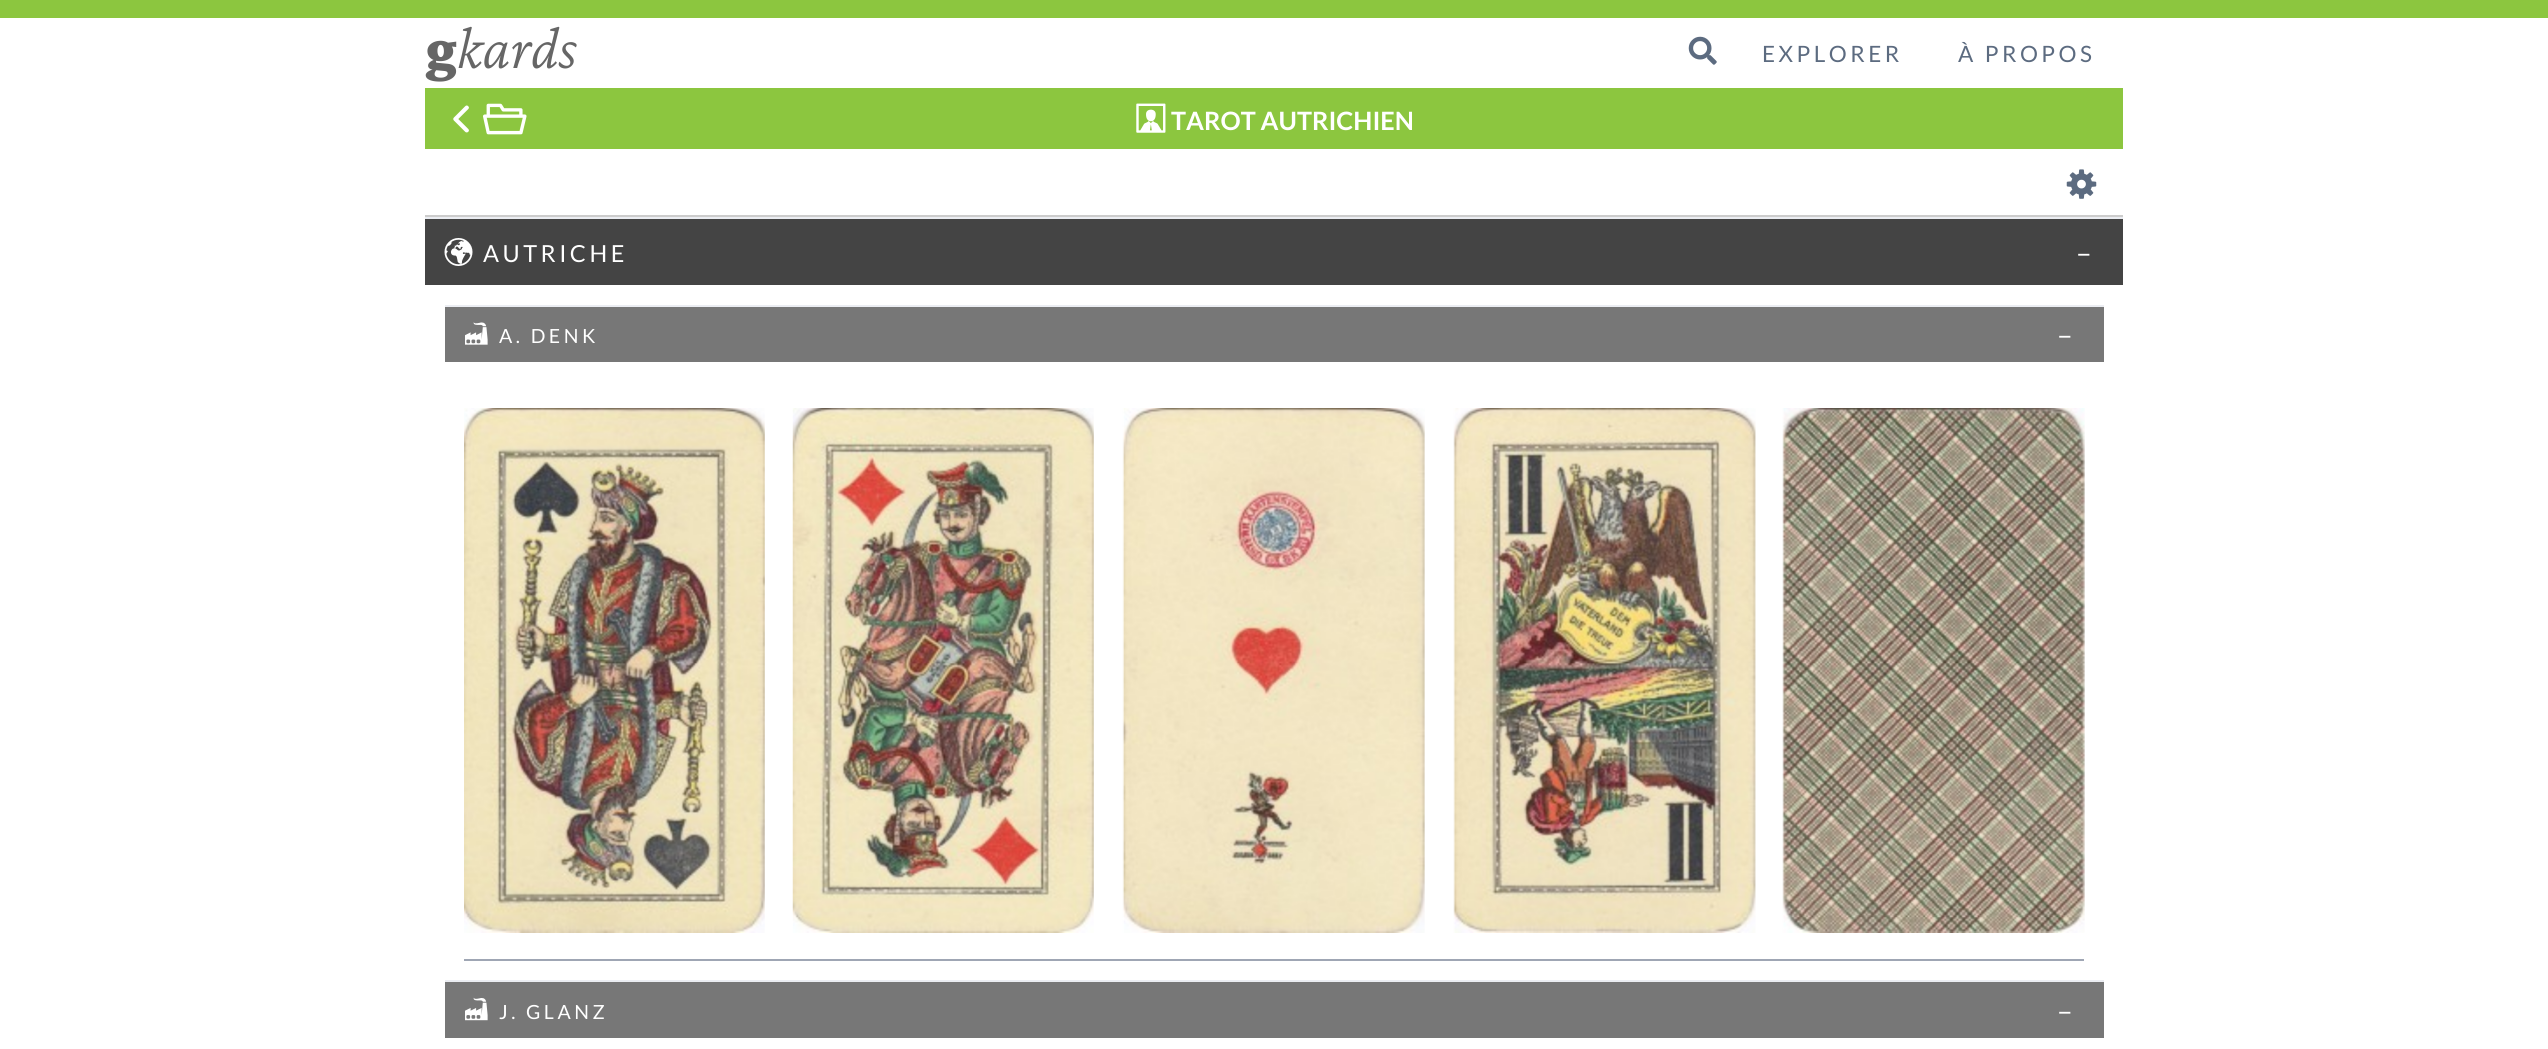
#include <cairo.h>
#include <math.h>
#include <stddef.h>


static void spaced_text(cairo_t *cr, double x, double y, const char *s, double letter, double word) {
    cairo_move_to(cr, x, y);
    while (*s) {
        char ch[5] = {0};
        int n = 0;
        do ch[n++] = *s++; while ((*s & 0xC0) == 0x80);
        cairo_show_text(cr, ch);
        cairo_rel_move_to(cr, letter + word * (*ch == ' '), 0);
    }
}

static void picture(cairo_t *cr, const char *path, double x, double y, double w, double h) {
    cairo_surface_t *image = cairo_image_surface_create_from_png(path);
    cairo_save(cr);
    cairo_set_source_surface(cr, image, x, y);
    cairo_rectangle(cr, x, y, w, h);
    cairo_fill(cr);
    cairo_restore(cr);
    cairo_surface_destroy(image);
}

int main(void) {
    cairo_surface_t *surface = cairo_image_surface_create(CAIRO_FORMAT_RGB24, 2548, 1049);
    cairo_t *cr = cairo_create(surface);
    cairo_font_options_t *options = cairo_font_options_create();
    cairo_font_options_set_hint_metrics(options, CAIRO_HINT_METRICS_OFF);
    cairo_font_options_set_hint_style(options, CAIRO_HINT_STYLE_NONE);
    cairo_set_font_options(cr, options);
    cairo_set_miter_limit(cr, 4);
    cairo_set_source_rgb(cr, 1, 1, 1);
    cairo_paint(cr);
    cairo_set_source_rgb(cr, 0.549, 0.776, 0.247);
    cairo_rectangle(cr, 0, 0, 2548, 18);
    cairo_fill(cr);
    cairo_select_font_face(cr, "Crimson Pro Black", CAIRO_FONT_SLANT_NORMAL, CAIRO_FONT_WEIGHT_NORMAL);
    cairo_set_font_size(cr, 61);
    cairo_set_source_rgb(cr, 0.4, 0.4, 0.4);
    cairo_move_to(cr, 425, 68);
    cairo_show_text(cr, "g");
    cairo_select_font_face(cr, "Crimson Pro Light", CAIRO_FONT_SLANT_ITALIC, CAIRO_FONT_WEIGHT_NORMAL);
    cairo_move_to(cr, 457, 68);
    cairo_show_text(cr, "kards");
    picture(cr, "img1.png", 1688, 36, 29, 29);
    cairo_select_font_face(cr, "Lato", CAIRO_FONT_SLANT_NORMAL, CAIRO_FONT_WEIGHT_NORMAL);
    cairo_set_font_size(cr, 22.5);
    cairo_set_source_rgb(cr, 0.361, 0.42, 0.502);
    spaced_text(cr, 1762, 62, "EXPLORER", 3.5, 0);
    spaced_text(cr, 1958, 62, "À PROPOS", 3.5, 0);
    cairo_set_source_rgb(cr, 0.549, 0.776, 0.247);
    cairo_rectangle(cr, 425, 88, 1698, 61);
    cairo_fill(cr);
    picture(cr, "img2.png", 453, 105, 16, 28);
    picture(cr, "img3.png", 483, 103, 44, 32);
    picture(cr, "img4.png", 1136, 103, 30, 30);
    cairo_select_font_face(cr, "Lato", CAIRO_FONT_SLANT_NORMAL, CAIRO_FONT_WEIGHT_BOLD);
    cairo_set_font_size(cr, 25.25);
    cairo_set_source_rgb(cr, 1, 1, 1);
    cairo_move_to(cr, 1171, 130);
    cairo_show_text(cr, "TAROT AUTRICHIEN");
    cairo_set_source_rgb(cr, 0.8, 0.8, 0.8);
    cairo_rectangle(cr, 425, 215, 1698, 2);
    cairo_fill(cr);
    picture(cr, "img5.png", 2066, 169, 31, 30);
    cairo_set_source_rgb(cr, 0.267, 0.267, 0.267);
    cairo_rectangle(cr, 425, 219, 1698, 66);
    cairo_fill(cr);
    cairo_set_source_rgb(cr, 0.918, 0.929, 0.949);
    cairo_rectangle(cr, 425, 217, 1698, 2);
    cairo_fill(cr);
    picture(cr, "img6.png", 444, 238, 29, 28);
    cairo_select_font_face(cr, "Lato", CAIRO_FONT_SLANT_NORMAL, CAIRO_FONT_WEIGHT_NORMAL);
    cairo_set_font_size(cr, 23.5);
    cairo_set_source_rgb(cr, 1, 1, 1);
    spaced_text(cr, 483, 262, "AUTRICHE", 3.5, 0);
    cairo_set_font_size(cr, 28);
    spaced_text(cr, 2076, 263, "–", 3.5, 0);
    cairo_set_source_rgb(cr, 0.467, 0.467, 0.467);
    cairo_rectangle(cr, 445, 307, 1659, 55);
    cairo_fill(cr);
    cairo_set_source_rgb(cr, 0.918, 0.929, 0.949);
    cairo_rectangle(cr, 445, 305, 1659, 2);
    cairo_fill(cr);
    picture(cr, "img7.png", 465, 322, 23, 23);
    cairo_set_font_size(cr, 19.5);
    cairo_set_source_rgb(cr, 1, 1, 1);
    spaced_text(cr, 499, 343, "A. DENK", 3.5, 0);
    cairo_set_font_size(cr, 28);
    spaced_text(cr, 2057, 345, "–", 3.5, 0);
    cairo_set_source_rgb(cr, 0.624, 0.651, 0.706);
    cairo_rectangle(cr, 464, 959, 1620, 2);
    cairo_fill(cr);
    picture(cr, "img8.png", 464, 408, 301, 525);
    picture(cr, "img9.png", 792, 408, 302, 525);
    picture(cr, "img10.png", 1122, 408, 303, 525);
    picture(cr, "img11.png", 1453, 408, 303, 525);
    picture(cr, "img12.png", 1782, 408, 303, 525);
    cairo_set_source_rgb(cr, 0.467, 0.467, 0.467);
    cairo_rectangle(cr, 445, 982, 1659, 56);
    cairo_fill(cr);
    cairo_set_source_rgb(cr, 0.918, 0.929, 0.949);
    cairo_rectangle(cr, 445, 980, 1659, 2);
    cairo_fill(cr);
    picture(cr, "img13.png", 465, 997, 23, 24);
    cairo_set_font_size(cr, 19.5);
    cairo_set_source_rgb(cr, 1, 1, 1);
    spaced_text(cr, 499, 1019, "J. GLANZ", 3.5, 0);
    cairo_set_font_size(cr, 28);
    spaced_text(cr, 2057, 1021, "–", 3.5, 0);
    cairo_surface_write_to_png(surface, "page.png");
    cairo_font_options_destroy(options);
    cairo_destroy(cr);
    cairo_surface_destroy(surface);
    return 0;
}
